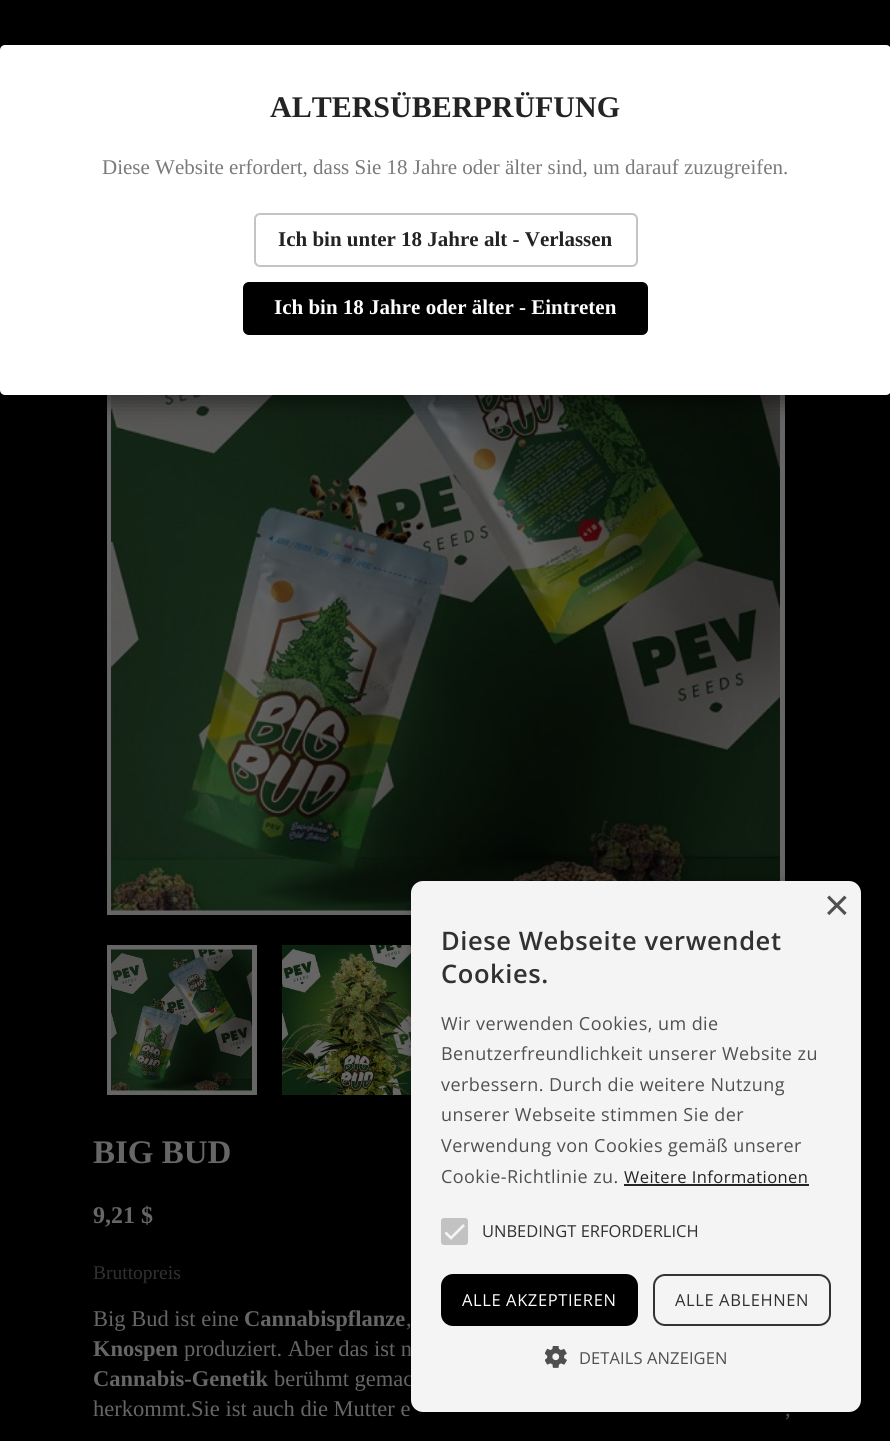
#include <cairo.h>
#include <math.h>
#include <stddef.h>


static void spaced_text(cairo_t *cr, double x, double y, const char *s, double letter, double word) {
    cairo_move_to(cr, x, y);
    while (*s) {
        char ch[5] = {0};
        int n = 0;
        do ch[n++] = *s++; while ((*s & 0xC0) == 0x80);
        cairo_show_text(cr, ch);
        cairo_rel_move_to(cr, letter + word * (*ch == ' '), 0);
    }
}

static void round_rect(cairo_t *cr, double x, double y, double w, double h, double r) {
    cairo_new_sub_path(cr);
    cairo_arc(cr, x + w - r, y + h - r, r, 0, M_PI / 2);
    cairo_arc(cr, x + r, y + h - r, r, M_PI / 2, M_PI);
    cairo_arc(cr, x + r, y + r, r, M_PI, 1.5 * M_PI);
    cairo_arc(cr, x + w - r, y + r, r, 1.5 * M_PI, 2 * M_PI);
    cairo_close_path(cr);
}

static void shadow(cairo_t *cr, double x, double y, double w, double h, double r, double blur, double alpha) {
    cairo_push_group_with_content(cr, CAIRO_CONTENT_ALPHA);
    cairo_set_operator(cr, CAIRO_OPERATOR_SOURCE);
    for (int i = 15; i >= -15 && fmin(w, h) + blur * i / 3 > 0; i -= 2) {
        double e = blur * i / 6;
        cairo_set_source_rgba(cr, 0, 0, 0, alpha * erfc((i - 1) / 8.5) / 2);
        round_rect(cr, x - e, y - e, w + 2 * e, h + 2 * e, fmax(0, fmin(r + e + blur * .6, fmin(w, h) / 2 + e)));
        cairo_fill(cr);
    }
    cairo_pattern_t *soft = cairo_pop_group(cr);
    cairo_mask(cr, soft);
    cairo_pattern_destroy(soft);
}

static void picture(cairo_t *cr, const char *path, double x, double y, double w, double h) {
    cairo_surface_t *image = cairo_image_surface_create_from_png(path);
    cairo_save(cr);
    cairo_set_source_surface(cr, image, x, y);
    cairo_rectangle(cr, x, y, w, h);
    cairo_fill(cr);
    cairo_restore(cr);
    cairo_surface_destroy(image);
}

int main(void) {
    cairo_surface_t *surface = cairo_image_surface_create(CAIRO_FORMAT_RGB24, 890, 1441);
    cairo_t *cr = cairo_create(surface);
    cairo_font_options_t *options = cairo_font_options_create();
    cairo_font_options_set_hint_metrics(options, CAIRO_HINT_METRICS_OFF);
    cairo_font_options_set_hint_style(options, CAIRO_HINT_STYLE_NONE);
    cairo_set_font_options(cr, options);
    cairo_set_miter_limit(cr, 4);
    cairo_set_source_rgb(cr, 0, 0, 0);
    cairo_paint(cr);
    cairo_set_source_rgb(cr, 0.4, 0.4, 0.4);
    cairo_rectangle(cr, 107, 395, 678, 520);
    cairo_fill(cr);
    picture(cr, "img1.png", 111, 395, 669, 516);
    cairo_set_source_rgb(cr, 0, 0, 0);
    shadow(cr, 0, 53, 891, 349, 5, 11, 0.5);
    cairo_set_source_rgb(cr, 1, 1, 1);
    round_rect(cr, 0, 45, 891, 350, 5);
    cairo_fill(cr);
    cairo_select_font_face(cr, "Liberation Serif", CAIRO_FONT_SLANT_NORMAL, CAIRO_FONT_WEIGHT_BOLD);
    cairo_set_font_size(cr, 30);
    cairo_set_source_rgb(cr, 0.137, 0.137, 0.137);
    cairo_move_to(cr, 270, 117);
    cairo_show_text(cr, "ALTERSÜBERPRÜFUNG");
    cairo_select_font_face(cr, "Liberation Serif", CAIRO_FONT_SLANT_NORMAL, CAIRO_FONT_WEIGHT_NORMAL);
    cairo_set_font_size(cr, 21);
    cairo_set_source_rgb(cr, 0.478, 0.478, 0.478);
    cairo_move_to(cr, 102, 174);
    cairo_show_text(cr, "Diese Website erfordert, dass Sie 18 Jahre oder älter sind, um darauf zuzugreifen.");
    round_rect(cr, 255, 214, 382, 52, 5);
    cairo_set_source_rgb(cr, 0.769, 0.769, 0.769);
    cairo_stroke(cr);
    cairo_select_font_face(cr, "Liberation Serif", CAIRO_FONT_SLANT_NORMAL, CAIRO_FONT_WEIGHT_BOLD);
    cairo_set_source_rgb(cr, 0.137, 0.137, 0.137);
    cairo_move_to(cr, 278, 246);
    cairo_show_text(cr, "Ich bin unter 18 Jahre alt - Verlassen");
    cairo_set_source_rgb(cr, 0, 0, 0);
    round_rect(cr, 243, 282, 405, 53, 6);
    cairo_fill(cr);
    cairo_set_source_rgb(cr, 1, 1, 1);
    cairo_move_to(cr, 274, 314);
    cairo_show_text(cr, "Ich bin 18 Jahre oder älter - Eintreten");
    cairo_rectangle(cr, 109.5, 947.5, 145, 145);
    cairo_set_source_rgb(cr, 0.4, 0.4, 0.4);
    cairo_set_line_width(cr, 5);
    cairo_stroke(cr);
    picture(cr, "img2.png", 282, 945, 129, 150);
    picture(cr, "img3.png", 111, 949, 141, 142);
    cairo_set_font_size(cr, 33);
    cairo_move_to(cr, 93, 1163);
    cairo_show_text(cr, "BIG BUD");
    cairo_set_font_size(cr, 24);
    cairo_move_to(cr, 93, 1223);
    cairo_show_text(cr, "9,21 $");
    cairo_select_font_face(cr, "Liberation Serif", CAIRO_FONT_SLANT_NORMAL, CAIRO_FONT_WEIGHT_NORMAL);
    cairo_set_font_size(cr, 19.5);
    cairo_set_source_rgb(cr, 0.192, 0.192, 0.192);
    cairo_move_to(cr, 93, 1279);
    cairo_show_text(cr, "Bruttopreis");
    cairo_set_font_size(cr, 22.5);
    cairo_set_source_rgb(cr, 0.4, 0.4, 0.4);
    cairo_move_to(cr, 93, 1326);
    cairo_show_text(cr, "Big Bud ist eine");
    cairo_select_font_face(cr, "Liberation Serif", CAIRO_FONT_SLANT_NORMAL, CAIRO_FONT_WEIGHT_BOLD);
    cairo_move_to(cr, 244, 1326);
    cairo_show_text(cr, "Cannabispflanze");
    cairo_select_font_face(cr, "Liberation Serif", CAIRO_FONT_SLANT_NORMAL, CAIRO_FONT_WEIGHT_NORMAL);
    cairo_move_to(cr, 406, 1326);
    cairo_show_text(cr, ",");
    cairo_select_font_face(cr, "Liberation Serif", CAIRO_FONT_SLANT_NORMAL, CAIRO_FONT_WEIGHT_BOLD);
    cairo_move_to(cr, 93, 1356);
    cairo_show_text(cr, "Knospen");
    cairo_select_font_face(cr, "Liberation Serif", CAIRO_FONT_SLANT_NORMAL, CAIRO_FONT_WEIGHT_NORMAL);
    cairo_move_to(cr, 184, 1356);
    cairo_show_text(cr, "produziert. Aber das ist n");
    cairo_select_font_face(cr, "Liberation Serif", CAIRO_FONT_SLANT_NORMAL, CAIRO_FONT_WEIGHT_BOLD);
    cairo_move_to(cr, 93, 1386);
    cairo_show_text(cr, "Cannabis-Genetik");
    cairo_select_font_face(cr, "Liberation Serif", CAIRO_FONT_SLANT_NORMAL, CAIRO_FONT_WEIGHT_NORMAL);
    cairo_move_to(cr, 274, 1386);
    cairo_show_text(cr, "berühmt gemac");
    cairo_move_to(cr, 93, 1416);
    cairo_show_text(cr, "herkommt.Sie ist auch die Mutter e");
    cairo_move_to(cr, 785, 1416);
    cairo_show_text(cr, ",");
    cairo_set_source_rgb(cr, 0, 0, 0);
    shadow(cr, 413, 884, 450, 531, 12, 6, 0.35);
    cairo_set_source_rgb(cr, 0.957, 0.957, 0.957);
    round_rect(cr, 411, 881, 450, 531, 12);
    cairo_fill(cr);
    cairo_select_font_face(cr, "Liberation Sans", CAIRO_FONT_SLANT_NORMAL, CAIRO_FONT_WEIGHT_NORMAL);
    cairo_set_font_size(cr, 44);
    cairo_set_source_rgb(cr, 0.314, 0.314, 0.314);
    cairo_move_to(cr, 824, 920);
    cairo_show_text(cr, "×");
    cairo_select_font_face(cr, "Open Sans SemiBold", CAIRO_FONT_SLANT_NORMAL, CAIRO_FONT_WEIGHT_NORMAL);
    cairo_set_font_size(cr, 25.5);
    cairo_set_source_rgb(cr, 0.192, 0.192, 0.192);
    spaced_text(cr, 441, 950, "Diese Webseite verwendet", 0.6, 0);
    spaced_text(cr, 441, 983, "Cookies.", 0.6, 0);
    cairo_select_font_face(cr, "Open Sans", CAIRO_FONT_SLANT_NORMAL, CAIRO_FONT_WEIGHT_NORMAL);
    cairo_set_font_size(cr, 18);
    cairo_set_source_rgb(cr, 0.314, 0.314, 0.314);
    spaced_text(cr, 441, 1030, "Wir verwenden Cookies, um die", 0.45, 0);
    spaced_text(cr, 441, 1060, "Benutzerfreundlichkeit unserer Website zu", 0.45, 0);
    spaced_text(cr, 441, 1091, "verbessern. Durch die weitere Nutzung", 0.45, 0);
    spaced_text(cr, 441, 1121, "unserer Webseite stimmen Sie der", 0.45, 0);
    spaced_text(cr, 441, 1152, "Verwendung von Cookies gemäß unserer", 0.45, 0);
    spaced_text(cr, 441, 1183, "Cookie-Richtlinie zu.", 0.45, 0);
    cairo_set_font_size(cr, 16.5);
    cairo_set_source_rgb(cr, 0.137, 0.137, 0.137);
    spaced_text(cr, 624, 1183, "Weitere Informationen", 0.45, 0);
    cairo_set_source_rgb(cr, 0.145, 0.145, 0.145);
    cairo_rectangle(cr, 624, 1184, 185, 2);
    cairo_fill(cr);
    cairo_set_source_rgb(cr, 0.761, 0.761, 0.761);
    round_rect(cr, 441, 1218, 27, 27, 3);
    cairo_fill(cr);
    cairo_new_path(cr);
    cairo_move_to(cr, 445.5, 1232.5);
    cairo_line_to(cr, 451, 1238);
    cairo_line_to(cr, 464, 1225);
    cairo_set_source_rgb(cr, 0.957, 0.957, 0.957);
    cairo_set_line_width(cr, 2.7);
    cairo_stroke(cr);
    cairo_set_source_rgb(cr, 0.192, 0.192, 0.192);
    cairo_move_to(cr, 482, 1237);
    cairo_show_text(cr, "UNBEDINGT ERFORDERLICH");
    cairo_set_source_rgb(cr, 0, 0, 0);
    round_rect(cr, 441, 1274, 197, 52, 12);
    cairo_fill(cr);
    cairo_set_source_rgb(cr, 1, 1, 1);
    spaced_text(cr, 462, 1306, "ALLE AKZEPTIEREN", 0.6, 0);
    round_rect(cr, 654, 1275, 176, 50, 11);
    cairo_set_source_rgb(cr, 0.2, 0.2, 0.2);
    cairo_set_line_width(cr, 2);
    cairo_stroke(cr);
    cairo_set_source_rgb(cr, 0.192, 0.192, 0.192);
    spaced_text(cr, 675, 1306, "ALLE ABLEHNEN", 0.6, 0);
    picture(cr, "img4.png", 545, 1346, 22, 22);
    cairo_set_source_rgb(cr, 0.314, 0.314, 0.314);
    spaced_text(cr, 579, 1364, "DETAILS ANZEIGEN", 0.1, 0);
    cairo_surface_write_to_png(surface, "page.png");
    cairo_font_options_destroy(options);
    cairo_destroy(cr);
    cairo_surface_destroy(surface);
    return 0;
}
